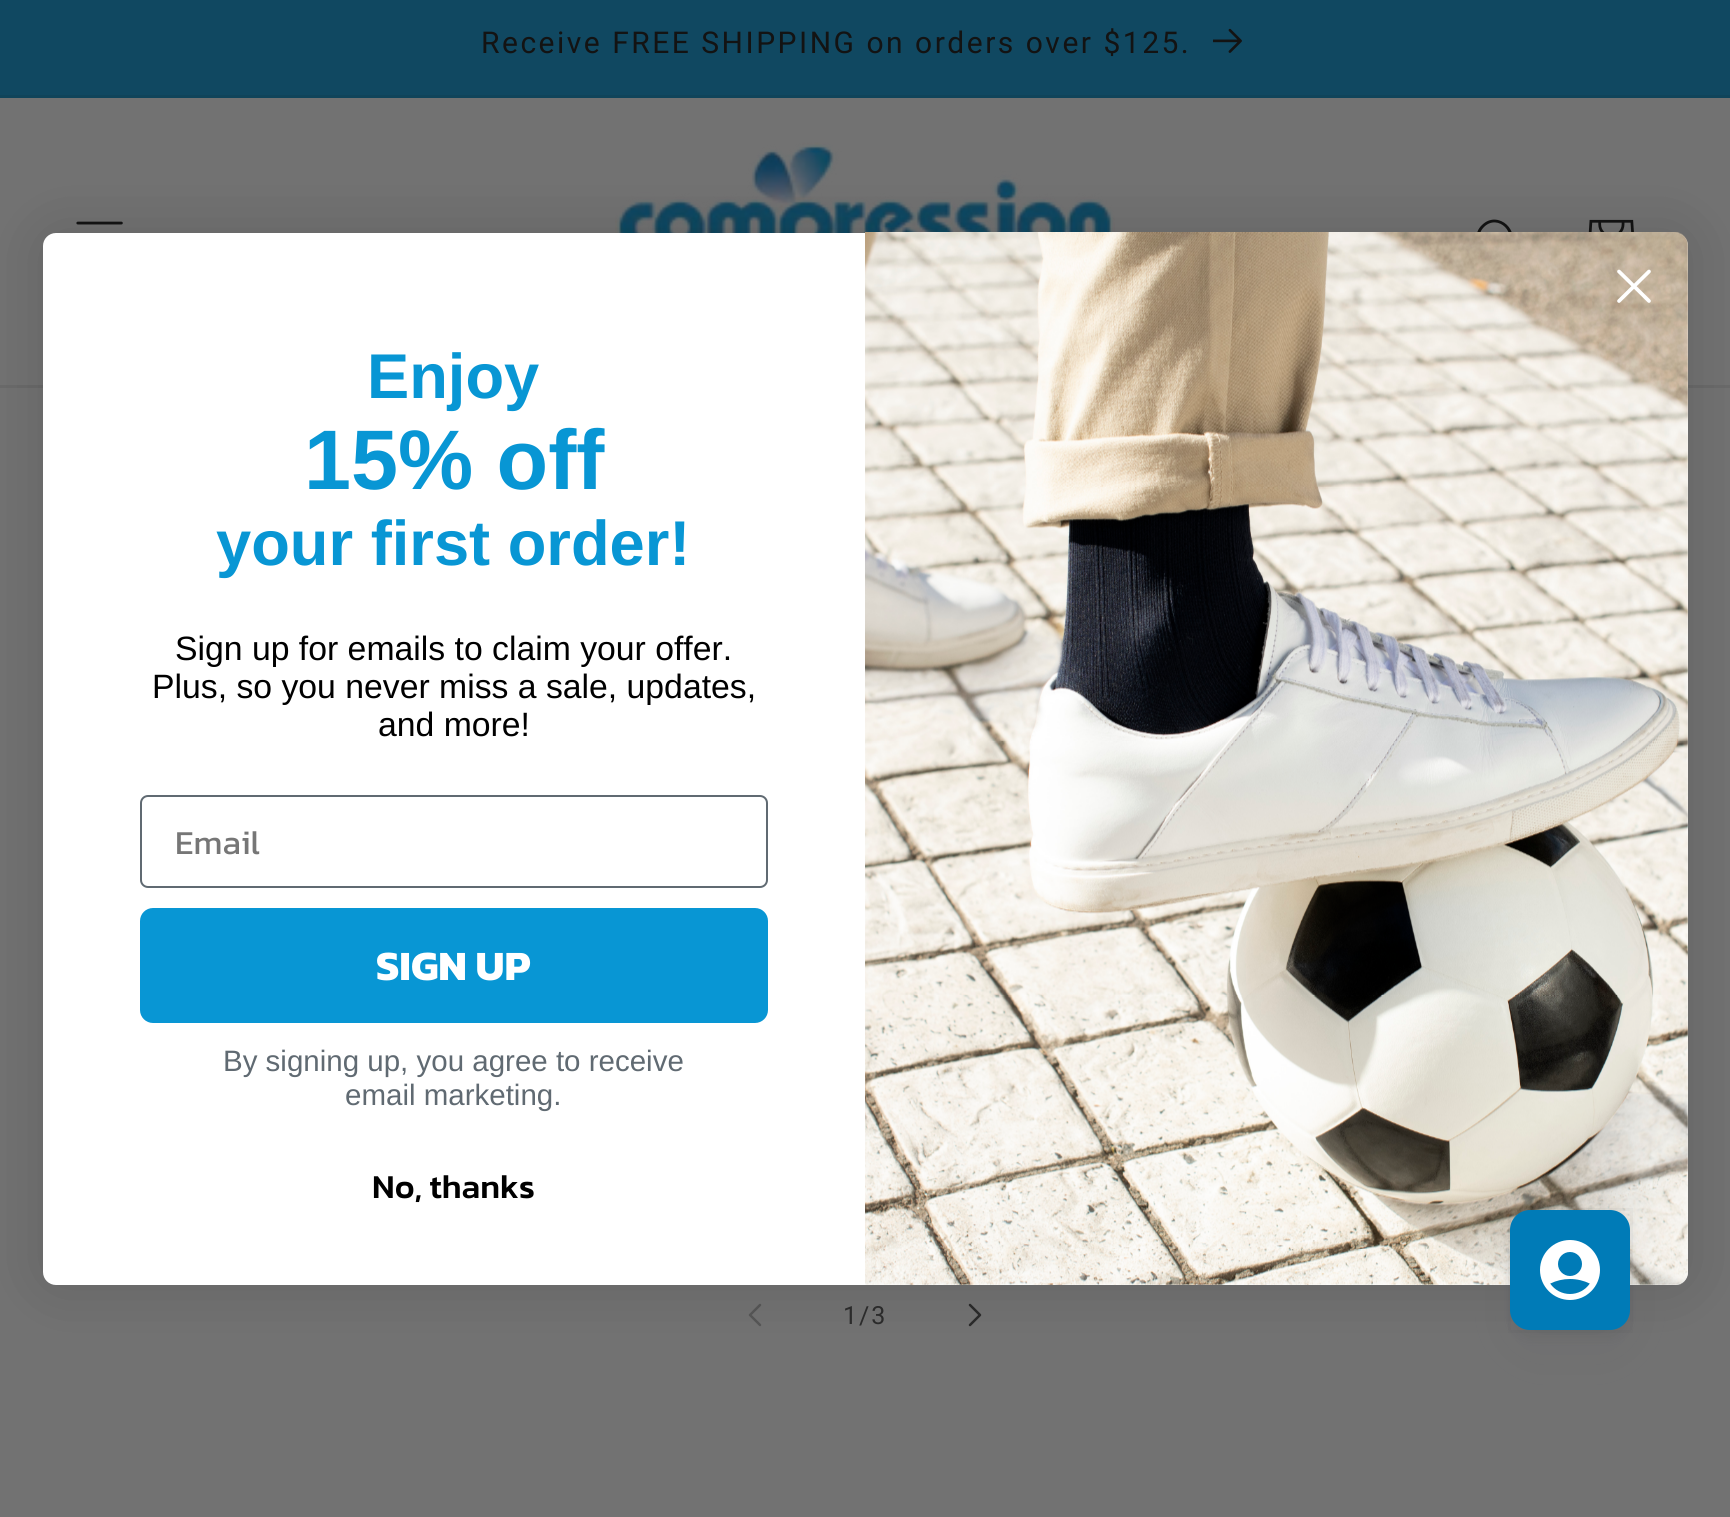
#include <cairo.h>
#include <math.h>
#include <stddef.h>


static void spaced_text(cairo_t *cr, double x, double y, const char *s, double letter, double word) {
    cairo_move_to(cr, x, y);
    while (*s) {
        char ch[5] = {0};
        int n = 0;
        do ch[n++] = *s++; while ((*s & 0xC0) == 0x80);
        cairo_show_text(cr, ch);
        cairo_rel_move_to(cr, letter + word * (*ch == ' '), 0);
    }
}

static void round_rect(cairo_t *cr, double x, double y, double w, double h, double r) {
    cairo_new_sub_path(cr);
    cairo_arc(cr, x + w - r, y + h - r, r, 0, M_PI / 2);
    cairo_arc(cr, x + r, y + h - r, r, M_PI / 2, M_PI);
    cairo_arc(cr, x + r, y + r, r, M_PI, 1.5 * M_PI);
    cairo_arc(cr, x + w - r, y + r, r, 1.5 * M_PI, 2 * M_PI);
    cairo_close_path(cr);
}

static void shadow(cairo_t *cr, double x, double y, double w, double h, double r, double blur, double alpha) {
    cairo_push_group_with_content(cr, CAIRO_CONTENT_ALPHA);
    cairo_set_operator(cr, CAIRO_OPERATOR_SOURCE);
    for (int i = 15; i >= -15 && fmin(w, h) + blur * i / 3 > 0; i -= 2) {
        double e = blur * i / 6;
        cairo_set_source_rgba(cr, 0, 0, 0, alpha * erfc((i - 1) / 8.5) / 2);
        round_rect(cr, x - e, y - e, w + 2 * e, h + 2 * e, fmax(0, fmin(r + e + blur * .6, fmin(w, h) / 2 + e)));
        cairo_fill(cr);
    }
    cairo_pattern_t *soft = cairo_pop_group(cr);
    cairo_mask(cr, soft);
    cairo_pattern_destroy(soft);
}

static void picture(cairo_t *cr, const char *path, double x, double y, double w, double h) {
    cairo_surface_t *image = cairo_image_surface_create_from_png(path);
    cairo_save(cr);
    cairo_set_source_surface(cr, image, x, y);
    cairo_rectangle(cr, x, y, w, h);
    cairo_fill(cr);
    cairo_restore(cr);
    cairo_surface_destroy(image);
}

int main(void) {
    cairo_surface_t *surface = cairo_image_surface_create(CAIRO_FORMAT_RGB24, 1730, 1517);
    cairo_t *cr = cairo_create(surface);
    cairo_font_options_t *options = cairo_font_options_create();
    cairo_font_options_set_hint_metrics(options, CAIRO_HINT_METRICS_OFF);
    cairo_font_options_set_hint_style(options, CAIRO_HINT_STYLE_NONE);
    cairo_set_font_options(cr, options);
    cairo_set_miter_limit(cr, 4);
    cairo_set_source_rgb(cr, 0.447, 0.447, 0.447);
    cairo_paint(cr);
    cairo_set_source_rgb(cr, 0.063, 0.282, 0.38);
    cairo_rectangle(cr, 0, 0, 1730, 95);
    cairo_fill(cr);
    cairo_set_source_rgb(cr, 0.063, 0.267, 0.353);
    cairo_rectangle(cr, 0, 95, 1730, 3);
    cairo_fill(cr);
    cairo_select_font_face(cr, "Roboto", CAIRO_FONT_SLANT_NORMAL, CAIRO_FONT_WEIGHT_NORMAL);
    cairo_set_font_size(cr, 30);
    cairo_set_source_rgb(cr, 0.075, 0.075, 0.075);
    spaced_text(cr, 481, 53, "Receive FREE SHIPPING on orders over $125.", 2.5, 0);
    picture(cr, "img1.png", 1213, 28, 29, 25);
    cairo_set_source_rgb(cr, 0.416, 0.416, 0.416);
    cairo_rectangle(cr, 0, 385, 1730, 3);
    cairo_fill(cr);
    picture(cr, "img2.png", 615, 142, 500, 91);
    picture(cr, "img3.png", 76, 221, 47, 4);
    cairo_set_source_rgb(cr, 0.075, 0.075, 0.075);
    cairo_set_fill_rule(cr, CAIRO_FILL_RULE_EVEN_ODD);
    cairo_new_path(cr);
    cairo_move_to(cr, 1505, 248);
    cairo_curve_to(cr, 1491, 262, 1470, 241, 1484, 227);
    cairo_curve_to(cr, 1498, 213, 1519, 234, 1505, 248);
    cairo_move_to(cr, 1506, 251);
    cairo_curve_to(cr, 1489, 266, 1466, 240, 1482, 225);
    cairo_curve_to(cr, 1498, 209, 1523, 232, 1508, 249);
    cairo_line_to(cr, 1523, 264);
    cairo_curve_to(cr, 1523, 266, 1521, 266, 1520, 265);
    cairo_close_path(cr);
    cairo_fill(cr);
    picture(cr, "img4.png", 1588, 219, 46, 13);
    picture(cr, "img6.png", 748, 1303, 14, 24);
    picture(cr, "img7.png", 968, 1303, 14, 24);
    cairo_set_source_rgb(cr, 0, 0, 0);
    shadow(cr, 43, 233, 1645, 1052, 13, 31.5, 0.15);
    cairo_set_source_rgb(cr, 1, 1, 1);
    round_rect(cr, 43, 233, 1645, 1052, 13);
    cairo_fill(cr);
    picture(cr, "img5.png", 865, 232, 823, 1053);
    cairo_new_path(cr);
    cairo_move_to(cr, 1619, 271.5);
    cairo_line_to(cr, 1649, 301);
    cairo_move_to(cr, 1619, 301);
    cairo_line_to(cr, 1649, 271.5);
    cairo_close_path(cr);
    cairo_set_line_width(cr, 3.7);
    cairo_set_line_cap(cr, CAIRO_LINE_CAP_ROUND);
    cairo_set_line_join(cr, CAIRO_LINE_JOIN_ROUND);
    cairo_stroke(cr);
    cairo_select_font_face(cr, "Liberation Sans", CAIRO_FONT_SLANT_NORMAL, CAIRO_FONT_WEIGHT_BOLD);
    cairo_set_font_size(cr, 63.25);
    cairo_set_source_rgb(cr, 0.035, 0.588, 0.831);
    cairo_move_to(cr, 367, 398);
    cairo_show_text(cr, "Enjoy");
    cairo_set_font_size(cr, 84.5);
    cairo_move_to(cr, 304, 489);
    cairo_show_text(cr, "15% off");
    cairo_set_font_size(cr, 63.25);
    cairo_move_to(cr, 216, 565);
    cairo_show_text(cr, "your first order!");
    cairo_select_font_face(cr, "Liberation Sans", CAIRO_FONT_SLANT_NORMAL, CAIRO_FONT_WEIGHT_NORMAL);
    cairo_set_font_size(cr, 33.75);
    cairo_set_source_rgb(cr, 0, 0, 0);
    cairo_move_to(cr, 175, 660);
    cairo_show_text(cr, "Sign up for emails to claim your offer.");
    cairo_move_to(cr, 152, 698);
    cairo_show_text(cr, "Plus, so you never miss a sale, updates,");
    cairo_move_to(cr, 378, 736);
    cairo_show_text(cr, "and more!");
    round_rect(cr, 141, 796, 626, 91, 7);
    cairo_set_source_rgb(cr, 0.376, 0.416, 0.447);
    cairo_set_line_width(cr, 2);
    cairo_set_line_cap(cr, CAIRO_LINE_CAP_BUTT);
    cairo_set_line_join(cr, CAIRO_LINE_JOIN_MITER);
    cairo_stroke(cr);
    cairo_select_font_face(cr, "Kanit", CAIRO_FONT_SLANT_NORMAL, CAIRO_FONT_WEIGHT_NORMAL);
    cairo_set_source_rgb(cr, 0.463, 0.463, 0.463);
    cairo_move_to(cr, 175, 854);
    cairo_show_text(cr, "Email");
    cairo_set_source_rgb(cr, 0.035, 0.588, 0.831);
    round_rect(cr, 140, 908, 628, 115, 13);
    cairo_fill(cr);
    cairo_select_font_face(cr, "Kanit", CAIRO_FONT_SLANT_NORMAL, CAIRO_FONT_WEIGHT_BOLD);
    cairo_set_font_size(cr, 42);
    cairo_set_source_rgb(cr, 1, 1, 1);
    cairo_move_to(cr, 376, 980);
    cairo_show_text(cr, "SIGN UP");
    cairo_select_font_face(cr, "Liberation Sans", CAIRO_FONT_SLANT_NORMAL, CAIRO_FONT_WEIGHT_NORMAL);
    cairo_set_font_size(cr, 29.5);
    cairo_set_source_rgb(cr, 0.376, 0.416, 0.447);
    cairo_move_to(cr, 223, 1071);
    cairo_show_text(cr, "By signing up, you agree to receive");
    cairo_move_to(cr, 345, 1105);
    cairo_show_text(cr, "email marketing.");
    cairo_select_font_face(cr, "Kanit Medium", CAIRO_FONT_SLANT_NORMAL, CAIRO_FONT_WEIGHT_NORMAL);
    cairo_set_font_size(cr, 33.75);
    cairo_set_source_rgb(cr, 0, 0, 0);
    cairo_move_to(cr, 372, 1198);
    cairo_show_text(cr, "No, thanks");
    cairo_select_font_face(cr, "Roboto", CAIRO_FONT_SLANT_NORMAL, CAIRO_FONT_WEIGHT_NORMAL);
    cairo_set_font_size(cr, 25);
    cairo_set_source_rgb(cr, 0.169, 0.169, 0.169);
    spaced_text(cr, 843, 1324, "1/3", 2, 0);
    cairo_set_source_rgb(cr, 0.216, 0.247, 0.278);
    shadow(cr, 1510, 1230, 120, 120, 20, 30, 0.08);
    shadow(cr, 1510, 1220, 120, 120, 20, 5, 0.08);
    cairo_rectangle(cr, 1509.5, 1209.5, 122, 122);
    cairo_set_source_rgba(cr, 0.216, 0.247, 0.278, 0.04);
    cairo_set_line_width(cr, 3);
    cairo_stroke(cr);
    cairo_set_source_rgb(cr, 0, 0.482, 0.718);
    round_rect(cr, 1510, 1210, 120, 120, 20);
    cairo_fill(cr);
    picture(cr, "img8.png", 1540, 1240, 60, 60);
    cairo_surface_write_to_png(surface, "page.png");
    cairo_font_options_destroy(options);
    cairo_destroy(cr);
    cairo_surface_destroy(surface);
    return 0;
}
